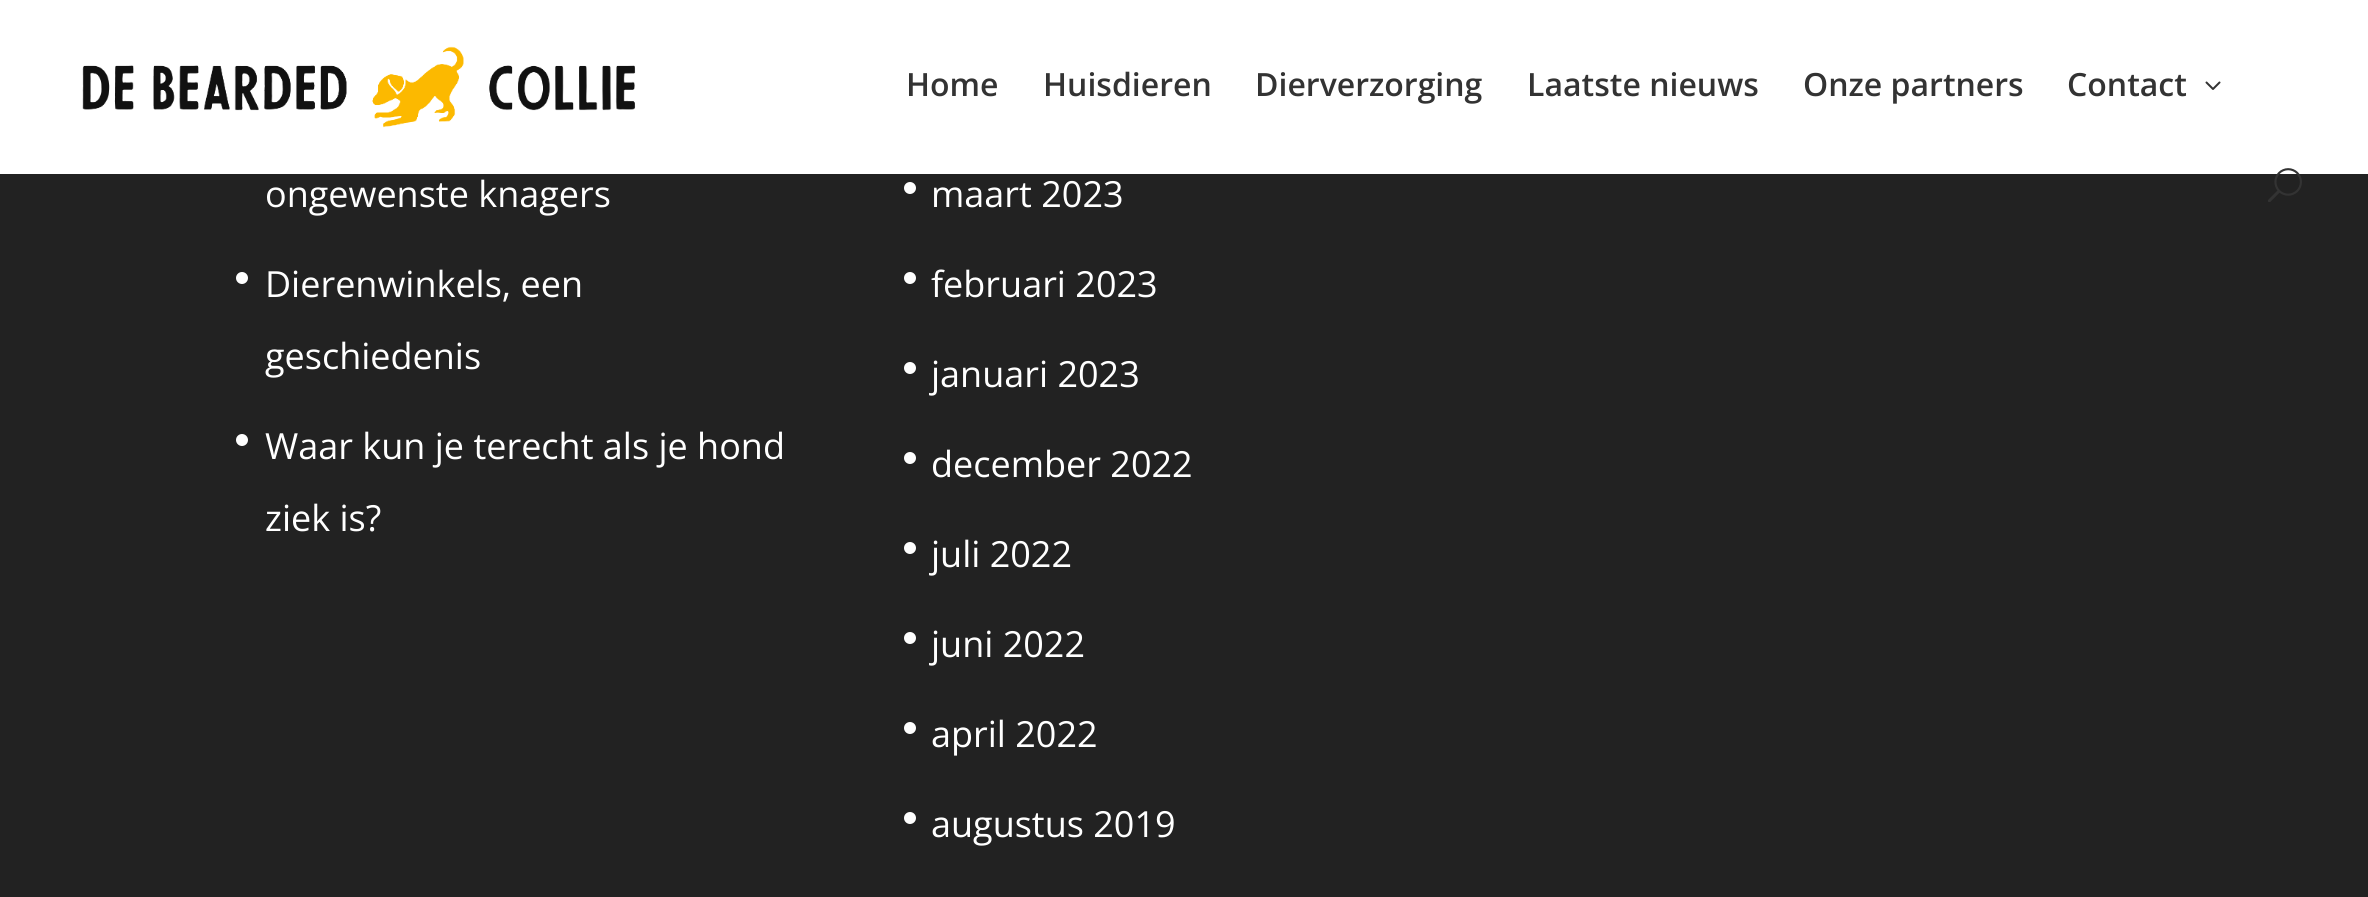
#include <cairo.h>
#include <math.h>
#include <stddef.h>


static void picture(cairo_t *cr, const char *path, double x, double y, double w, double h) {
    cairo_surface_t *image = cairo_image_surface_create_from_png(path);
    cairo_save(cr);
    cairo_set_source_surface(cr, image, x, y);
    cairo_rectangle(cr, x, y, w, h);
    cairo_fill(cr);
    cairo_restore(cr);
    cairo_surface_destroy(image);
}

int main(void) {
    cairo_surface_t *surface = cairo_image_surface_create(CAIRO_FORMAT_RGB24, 2368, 897);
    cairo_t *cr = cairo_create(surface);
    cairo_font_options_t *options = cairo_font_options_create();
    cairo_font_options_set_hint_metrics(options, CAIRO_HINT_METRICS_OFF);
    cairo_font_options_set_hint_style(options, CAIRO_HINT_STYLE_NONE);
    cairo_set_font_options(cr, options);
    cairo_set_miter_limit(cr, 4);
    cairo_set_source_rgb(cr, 0.133, 0.133, 0.133);
    cairo_paint(cr);
    cairo_set_source_rgb(cr, 1, 1, 1);
    cairo_rectangle(cr, 0, 0, 2368, 174);
    cairo_fill(cr);
    picture(cr, "img1.png", 82, 46, 554, 82);
    cairo_select_font_face(cr, "Open Sans SemiBold", CAIRO_FONT_SLANT_NORMAL, CAIRO_FONT_WEIGHT_NORMAL);
    cairo_set_font_size(cr, 32);
    cairo_set_source_rgb(cr, 0.2, 0.2, 0.2);
    cairo_move_to(cr, 906, 96);
    cairo_show_text(cr, "Home");
    cairo_move_to(cr, 1043, 96);
    cairo_show_text(cr, "Huisdieren");
    cairo_move_to(cr, 1255, 96);
    cairo_show_text(cr, "Dierverzorging");
    cairo_move_to(cr, 1527, 96);
    cairo_show_text(cr, "Laatste nieuws");
    cairo_move_to(cr, 1803, 96);
    cairo_show_text(cr, "Onze partners");
    cairo_move_to(cr, 2067, 96);
    cairo_show_text(cr, "Contact");
    picture(cr, "img2.png", 2205, 81, 16, 9);
    picture(cr, "img3.png", 2268, 168, 34, 34);
    cairo_select_font_face(cr, "Open Sans", CAIRO_FONT_SLANT_NORMAL, CAIRO_FONT_WEIGHT_NORMAL);
    cairo_set_font_size(cr, 36);
    cairo_set_source_rgb(cr, 1, 1, 1);
    cairo_move_to(cr, 265, 207);
    cairo_show_text(cr, "ongewenste knagers");
    cairo_new_path(cr);
    cairo_arc(cr, 242, 278, 6, 0, 2 * M_PI);
    cairo_fill(cr);
    cairo_move_to(cr, 265, 297);
    cairo_show_text(cr, "Dierenwinkels, een");
    cairo_move_to(cr, 265, 369);
    cairo_show_text(cr, "geschiedenis");
    cairo_new_path(cr);
    cairo_arc(cr, 242, 440, 6, 0, 2 * M_PI);
    cairo_fill(cr);
    cairo_move_to(cr, 265, 459);
    cairo_show_text(cr, "Waar kun je terecht als je hond");
    cairo_move_to(cr, 265, 531);
    cairo_show_text(cr, "ziek is?");
    cairo_new_path(cr);
    cairo_arc(cr, 910, 188, 6, 0, 2 * M_PI);
    cairo_fill(cr);
    cairo_move_to(cr, 931, 207);
    cairo_show_text(cr, "maart 2023");
    cairo_new_path(cr);
    cairo_arc(cr, 910, 278, 6, 0, 2 * M_PI);
    cairo_fill(cr);
    cairo_move_to(cr, 931, 297);
    cairo_show_text(cr, "februari 2023");
    cairo_new_path(cr);
    cairo_arc(cr, 910, 368, 6, 0, 2 * M_PI);
    cairo_fill(cr);
    cairo_move_to(cr, 931, 387);
    cairo_show_text(cr, "januari 2023");
    cairo_new_path(cr);
    cairo_arc(cr, 910, 458, 6, 0, 2 * M_PI);
    cairo_fill(cr);
    cairo_move_to(cr, 931, 477);
    cairo_show_text(cr, "december 2022");
    cairo_new_path(cr);
    cairo_arc(cr, 910, 548, 6, 0, 2 * M_PI);
    cairo_fill(cr);
    cairo_move_to(cr, 931, 567);
    cairo_show_text(cr, "juli 2022");
    cairo_new_path(cr);
    cairo_arc(cr, 910, 638, 6, 0, 2 * M_PI);
    cairo_fill(cr);
    cairo_move_to(cr, 931, 657);
    cairo_show_text(cr, "juni 2022");
    cairo_new_path(cr);
    cairo_arc(cr, 910, 728, 6, 0, 2 * M_PI);
    cairo_fill(cr);
    cairo_move_to(cr, 931, 747);
    cairo_show_text(cr, "april 2022");
    cairo_new_path(cr);
    cairo_arc(cr, 910, 818, 6, 0, 2 * M_PI);
    cairo_fill(cr);
    cairo_move_to(cr, 931, 837);
    cairo_show_text(cr, "augustus 2019");
    cairo_surface_write_to_png(surface, "page.png");
    cairo_font_options_destroy(options);
    cairo_destroy(cr);
    cairo_surface_destroy(surface);
    return 0;
}
